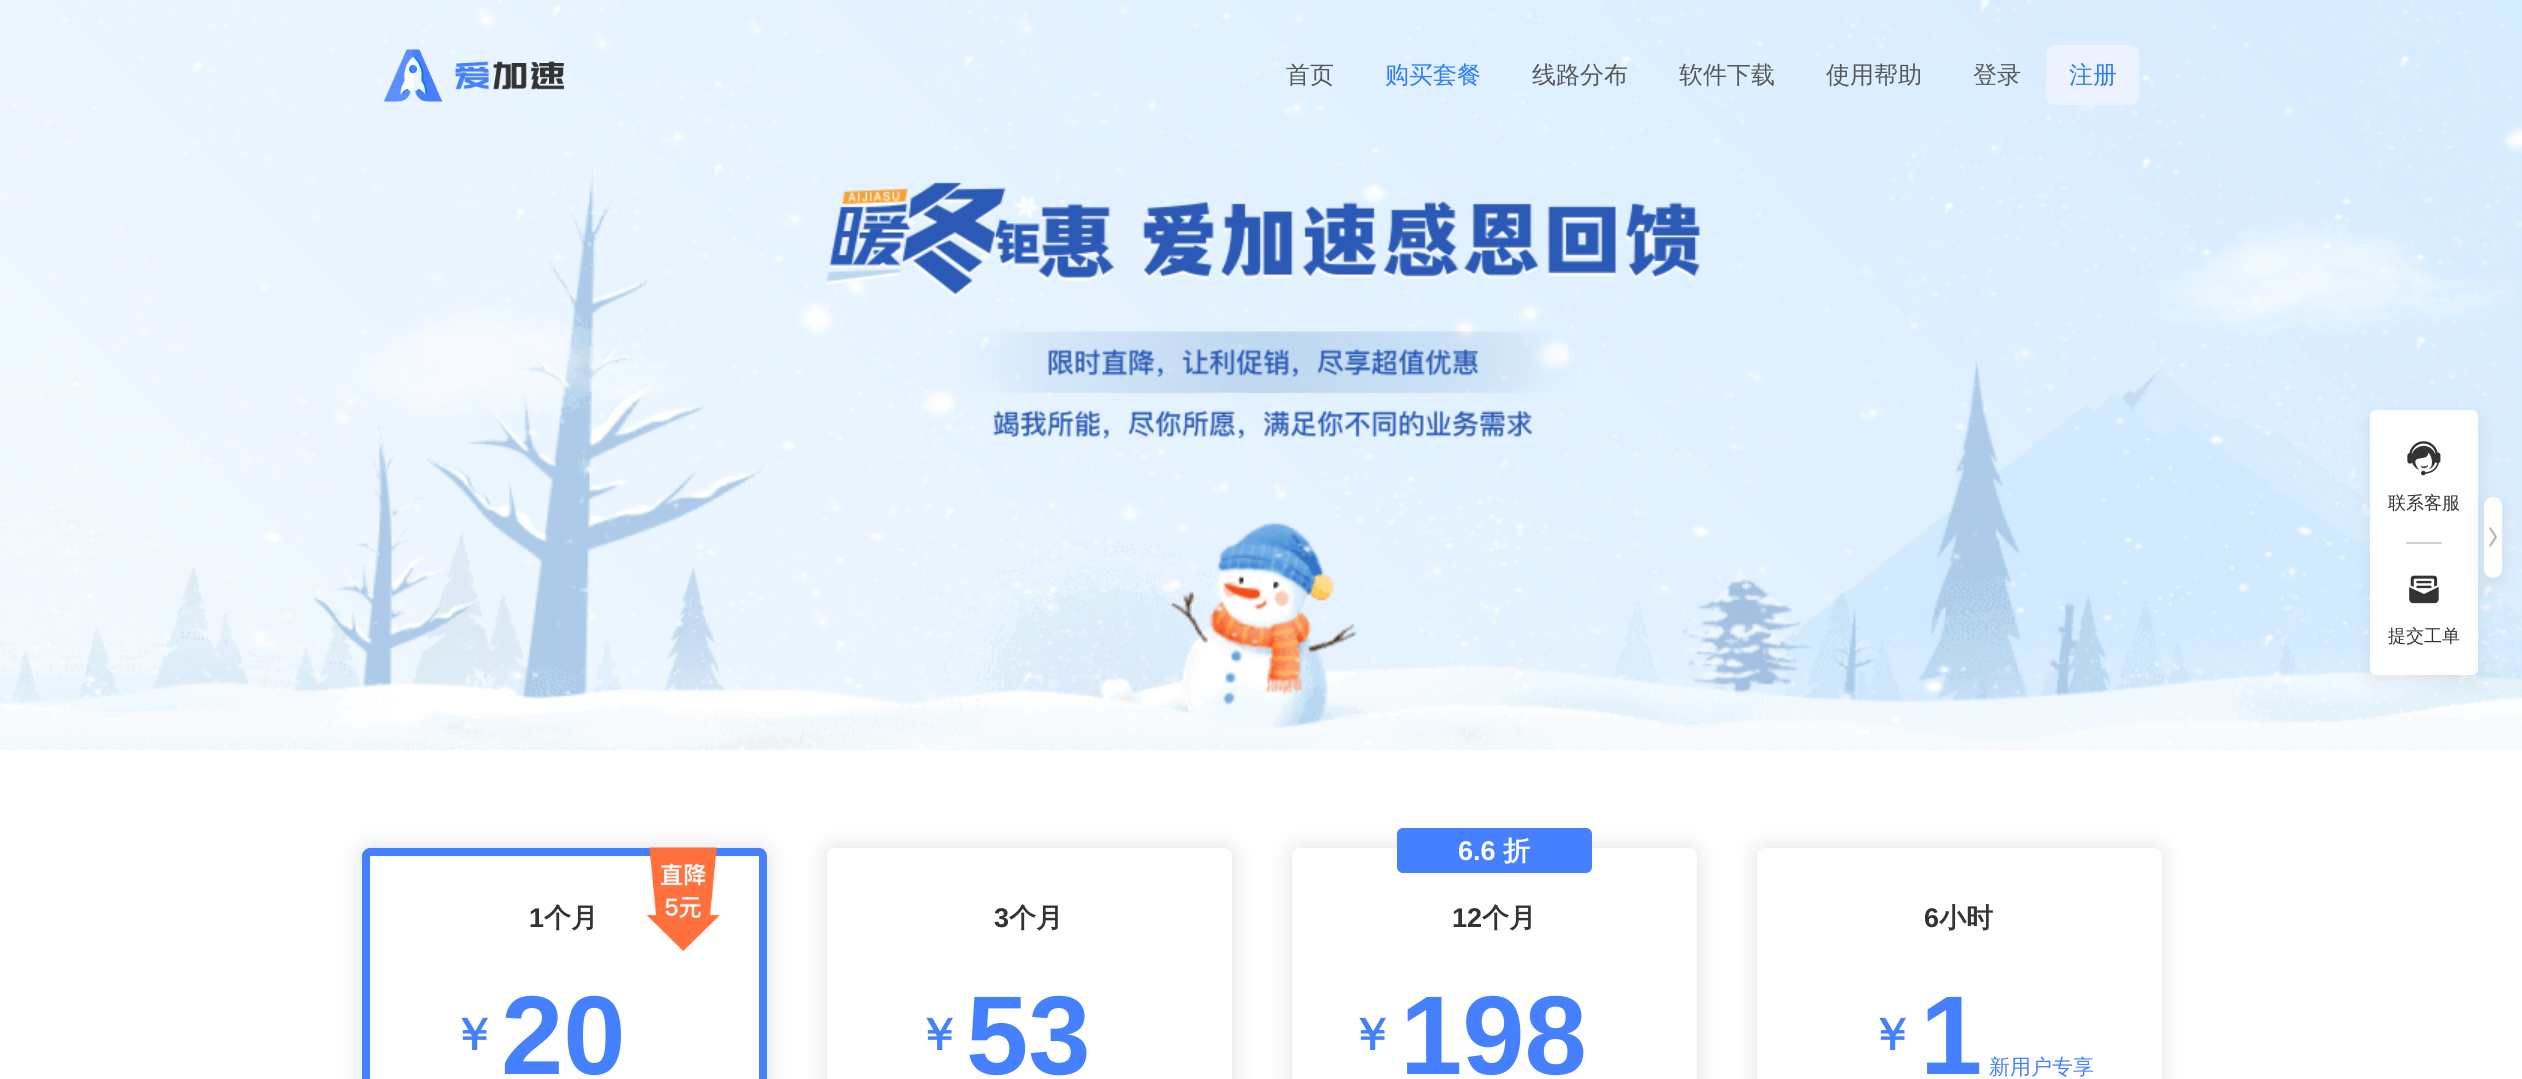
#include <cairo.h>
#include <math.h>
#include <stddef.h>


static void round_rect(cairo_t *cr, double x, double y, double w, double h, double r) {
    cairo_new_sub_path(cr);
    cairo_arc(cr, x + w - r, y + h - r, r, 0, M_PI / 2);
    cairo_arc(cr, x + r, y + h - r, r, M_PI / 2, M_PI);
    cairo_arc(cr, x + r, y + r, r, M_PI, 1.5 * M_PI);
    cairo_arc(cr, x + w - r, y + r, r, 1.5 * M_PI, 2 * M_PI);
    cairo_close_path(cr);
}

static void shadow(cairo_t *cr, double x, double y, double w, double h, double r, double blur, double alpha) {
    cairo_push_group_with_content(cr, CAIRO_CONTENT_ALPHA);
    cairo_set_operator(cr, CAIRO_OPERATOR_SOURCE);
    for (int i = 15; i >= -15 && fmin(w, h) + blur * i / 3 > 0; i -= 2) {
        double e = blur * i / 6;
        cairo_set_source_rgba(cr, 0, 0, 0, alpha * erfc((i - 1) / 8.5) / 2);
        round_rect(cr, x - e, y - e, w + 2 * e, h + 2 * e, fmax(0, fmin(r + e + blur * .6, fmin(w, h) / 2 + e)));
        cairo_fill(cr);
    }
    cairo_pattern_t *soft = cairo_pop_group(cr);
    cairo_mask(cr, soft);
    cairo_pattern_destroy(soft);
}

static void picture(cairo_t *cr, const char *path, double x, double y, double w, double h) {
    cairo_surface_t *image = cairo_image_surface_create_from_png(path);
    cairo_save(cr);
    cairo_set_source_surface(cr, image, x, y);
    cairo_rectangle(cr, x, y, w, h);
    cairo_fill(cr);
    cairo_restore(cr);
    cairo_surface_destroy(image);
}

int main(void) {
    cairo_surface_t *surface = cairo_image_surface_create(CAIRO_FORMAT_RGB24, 2522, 1079);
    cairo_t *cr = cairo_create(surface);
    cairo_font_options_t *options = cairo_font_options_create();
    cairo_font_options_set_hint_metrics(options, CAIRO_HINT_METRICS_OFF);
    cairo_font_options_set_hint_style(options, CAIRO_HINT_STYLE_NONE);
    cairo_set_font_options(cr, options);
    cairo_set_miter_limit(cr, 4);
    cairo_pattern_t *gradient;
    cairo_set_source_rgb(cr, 1, 1, 1);
    cairo_paint(cr);
    gradient = cairo_pattern_create_linear(443, 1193, 2080, -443);
    cairo_pattern_add_color_stop_rgba(gradient, 0, 0.953, 0.976, 1, 1);
    cairo_pattern_add_color_stop_rgba(gradient, 1, 0.835, 0.922, 1, 1);
    cairo_set_source(cr, gradient);
    cairo_pattern_destroy(gradient);
    cairo_rectangle(cr, 0, 0, 2522, 739);
    cairo_fill(cr);
    picture(cr, "img5.png", 0, 0, 2522, 750);
    picture(cr, "img1.png", 384, 49, 180, 53);
    cairo_select_font_face(cr, "WenQuanYi Zen Hei Medium", CAIRO_FONT_SLANT_NORMAL, CAIRO_FONT_WEIGHT_NORMAL);
    cairo_set_font_size(cr, 24);
    cairo_set_source_rgb(cr, 0.337, 0.349, 0.361);
    cairo_move_to(cr, 1286, 83);
    cairo_show_text(cr, "首页");
    cairo_set_source_rgb(cr, 0.176, 0.486, 0.98);
    cairo_move_to(cr, 1385, 83);
    cairo_show_text(cr, "购买套餐");
    cairo_set_source_rgb(cr, 0.337, 0.349, 0.361);
    cairo_move_to(cr, 1532, 83);
    cairo_show_text(cr, "线路分布");
    cairo_move_to(cr, 1679, 83);
    cairo_show_text(cr, "软件下载");
    cairo_move_to(cr, 1826, 83);
    cairo_show_text(cr, "使用帮助");
    cairo_move_to(cr, 1973, 83);
    cairo_show_text(cr, "登录");
    cairo_set_source_rgb(cr, 0.922, 0.953, 1);
    round_rect(cr, 2046, 45, 93, 60, 9);
    cairo_fill(cr);
    cairo_set_source_rgb(cr, 0.176, 0.486, 0.98);
    cairo_move_to(cr, 2069, 83);
    cairo_show_text(cr, "注册");
    cairo_set_source_rgb(cr, 0.6, 0.6, 0.6);
    shadow(cr, 2370, 416, 108, 265, 6, 9, 0.2);
    cairo_set_source_rgb(cr, 1, 1, 1);
    round_rect(cr, 2370, 410, 108, 265, 6);
    cairo_fill(cr);
    picture(cr, "img2.png", 2407, 441, 34, 35);
    cairo_set_font_size(cr, 18);
    cairo_set_source_rgb(cr, 0.2, 0.2, 0.2);
    cairo_move_to(cr, 2388, 509);
    cairo_show_text(cr, "联系客服");
    cairo_set_source_rgb(cr, 0.82, 0.82, 0.82);
    cairo_rectangle(cr, 2406, 542, 36, 2);
    cairo_fill(cr);
    picture(cr, "img3.png", 2409, 575, 30, 29);
    cairo_set_source_rgb(cr, 0.2, 0.2, 0.2);
    cairo_move_to(cr, 2388, 642);
    cairo_show_text(cr, "提交工单");
    cairo_set_source_rgb(cr, 0.6, 0.6, 0.6);
    shadow(cr, 2484, 503, 18, 81, 9, 9, 0.2);
    cairo_set_source_rgb(cr, 1, 1, 1);
    round_rect(cr, 2484, 497, 18, 81, 9);
    cairo_fill(cr);
    picture(cr, "img4.png", 2489, 527, 9, 21);
    picture(cr, "img6.png", 825, 182, 875, 258);
    cairo_set_source_rgb(cr, 0.122, 0.184, 0.275);
    shadow(cr, 362, 848, 405, 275, 8, 12, 0.15);
    cairo_set_source_rgb(cr, 1, 1, 1);
    round_rect(cr, 366, 852, 397, 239, 4);
    cairo_fill_preserve(cr);
    cairo_set_source_rgb(cr, 0.271, 0.502, 1);
    cairo_set_line_width(cr, 8);
    cairo_stroke(cr);
    cairo_select_font_face(cr, "Liberation Sans", CAIRO_FONT_SLANT_NORMAL, CAIRO_FONT_WEIGHT_BOLD);
    cairo_set_font_size(cr, 27);
    cairo_set_source_rgb(cr, 0.2, 0.2, 0.2);
    cairo_move_to(cr, 529, 927);
    cairo_show_text(cr, "1");
    cairo_select_font_face(cr, "WenQuanYi Zen Hei", CAIRO_FONT_SLANT_NORMAL, CAIRO_FONT_WEIGHT_BOLD);
    cairo_move_to(cr, 544, 927);
    cairo_show_text(cr, "个月");
    picture(cr, "img7.png", 646, 847, 74, 104);
    cairo_set_font_size(cr, 45);
    cairo_set_source_rgb(cr, 0.271, 0.502, 1);
    cairo_move_to(cr, 451, 1050);
    cairo_show_text(cr, "￥");
    cairo_select_font_face(cr, "Liberation Sans", CAIRO_FONT_SLANT_NORMAL, CAIRO_FONT_WEIGHT_BOLD);
    cairo_set_font_size(cr, 112);
    cairo_move_to(cr, 501, 1074);
    cairo_show_text(cr, "20");
    cairo_set_source_rgb(cr, 0.122, 0.184, 0.275);
    shadow(cr, 827, 848, 405, 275, 8, 12, 0.15);
    cairo_set_source_rgb(cr, 1, 1, 1);
    round_rect(cr, 831, 852, 397, 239, 4);
    cairo_fill_preserve(cr);
    cairo_stroke(cr);
    cairo_set_font_size(cr, 27);
    cairo_set_source_rgb(cr, 0.2, 0.2, 0.2);
    cairo_move_to(cr, 994, 927);
    cairo_show_text(cr, "3");
    cairo_select_font_face(cr, "WenQuanYi Zen Hei", CAIRO_FONT_SLANT_NORMAL, CAIRO_FONT_WEIGHT_BOLD);
    cairo_move_to(cr, 1009, 927);
    cairo_show_text(cr, "个月");
    cairo_set_font_size(cr, 45);
    cairo_set_source_rgb(cr, 0.271, 0.502, 1);
    cairo_move_to(cr, 916, 1050);
    cairo_show_text(cr, "￥");
    cairo_select_font_face(cr, "Liberation Sans", CAIRO_FONT_SLANT_NORMAL, CAIRO_FONT_WEIGHT_BOLD);
    cairo_set_font_size(cr, 112);
    cairo_move_to(cr, 966, 1074);
    cairo_show_text(cr, "53");
    cairo_set_source_rgb(cr, 0.122, 0.184, 0.275);
    shadow(cr, 1292, 848, 405, 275, 8, 12, 0.15);
    cairo_set_source_rgb(cr, 1, 1, 1);
    round_rect(cr, 1296, 852, 397, 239, 4);
    cairo_fill_preserve(cr);
    cairo_stroke(cr);
    cairo_set_source_rgb(cr, 0.271, 0.502, 1);
    round_rect(cr, 1397, 828, 195, 45, 6);
    cairo_fill(cr);
    cairo_set_font_size(cr, 27);
    cairo_set_source_rgb(cr, 1, 1, 1);
    cairo_move_to(cr, 1458, 860);
    cairo_show_text(cr, "6.6");
    cairo_select_font_face(cr, "WenQuanYi Zen Hei", CAIRO_FONT_SLANT_NORMAL, CAIRO_FONT_WEIGHT_BOLD);
    cairo_move_to(cr, 1503, 860);
    cairo_show_text(cr, "折");
    cairo_select_font_face(cr, "Liberation Sans", CAIRO_FONT_SLANT_NORMAL, CAIRO_FONT_WEIGHT_BOLD);
    cairo_set_source_rgb(cr, 0.2, 0.2, 0.2);
    cairo_move_to(cr, 1452, 927);
    cairo_show_text(cr, "12");
    cairo_select_font_face(cr, "WenQuanYi Zen Hei", CAIRO_FONT_SLANT_NORMAL, CAIRO_FONT_WEIGHT_BOLD);
    cairo_move_to(cr, 1482, 927);
    cairo_show_text(cr, "个月");
    cairo_set_font_size(cr, 45);
    cairo_set_source_rgb(cr, 0.271, 0.502, 1);
    cairo_move_to(cr, 1349, 1050);
    cairo_show_text(cr, "￥");
    cairo_select_font_face(cr, "Liberation Sans", CAIRO_FONT_SLANT_NORMAL, CAIRO_FONT_WEIGHT_BOLD);
    cairo_set_font_size(cr, 112);
    cairo_move_to(cr, 1400, 1074);
    cairo_show_text(cr, "198");
    cairo_set_source_rgb(cr, 0.122, 0.184, 0.275);
    shadow(cr, 1757, 848, 405, 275, 8, 12, 0.15);
    cairo_set_source_rgb(cr, 1, 1, 1);
    round_rect(cr, 1761, 852, 397, 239, 4);
    cairo_fill_preserve(cr);
    cairo_stroke(cr);
    cairo_set_font_size(cr, 27);
    cairo_set_source_rgb(cr, 0.2, 0.2, 0.2);
    cairo_move_to(cr, 1924, 927);
    cairo_show_text(cr, "6");
    cairo_select_font_face(cr, "WenQuanYi Zen Hei", CAIRO_FONT_SLANT_NORMAL, CAIRO_FONT_WEIGHT_BOLD);
    cairo_move_to(cr, 1939, 927);
    cairo_show_text(cr, "小时");
    cairo_set_font_size(cr, 45);
    cairo_set_source_rgb(cr, 0.271, 0.502, 1);
    cairo_move_to(cr, 1869, 1050);
    cairo_show_text(cr, "￥");
    cairo_select_font_face(cr, "Liberation Sans", CAIRO_FONT_SLANT_NORMAL, CAIRO_FONT_WEIGHT_BOLD);
    cairo_set_font_size(cr, 112);
    cairo_move_to(cr, 1920, 1074);
    cairo_show_text(cr, "1");
    cairo_select_font_face(cr, "WenQuanYi Zen Hei Medium", CAIRO_FONT_SLANT_NORMAL, CAIRO_FONT_WEIGHT_NORMAL);
    cairo_set_font_size(cr, 21);
    cairo_move_to(cr, 1989, 1074);
    cairo_show_text(cr, "新用户专享");
    cairo_surface_write_to_png(surface, "page.png");
    cairo_font_options_destroy(options);
    cairo_destroy(cr);
    cairo_surface_destroy(surface);
    return 0;
}
